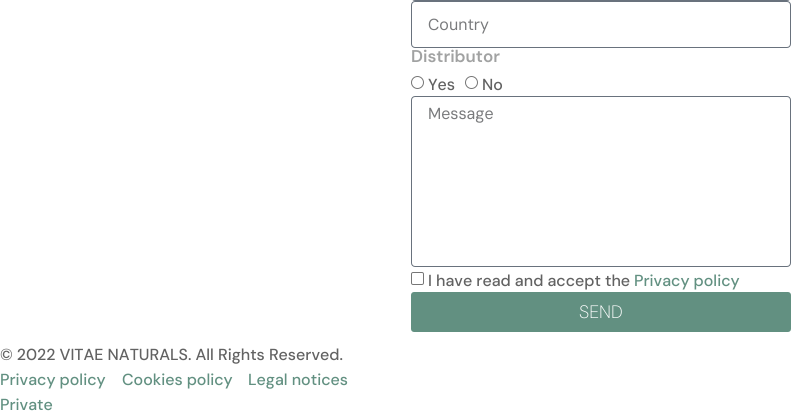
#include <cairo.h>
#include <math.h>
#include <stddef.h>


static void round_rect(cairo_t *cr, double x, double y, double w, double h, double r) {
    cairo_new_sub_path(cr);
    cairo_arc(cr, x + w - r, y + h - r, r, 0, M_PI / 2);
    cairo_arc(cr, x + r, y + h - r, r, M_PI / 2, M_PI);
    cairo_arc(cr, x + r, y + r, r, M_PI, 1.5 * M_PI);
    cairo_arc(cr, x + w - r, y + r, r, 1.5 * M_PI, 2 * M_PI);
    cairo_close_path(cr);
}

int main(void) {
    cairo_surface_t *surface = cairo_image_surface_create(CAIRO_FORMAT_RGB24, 801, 417);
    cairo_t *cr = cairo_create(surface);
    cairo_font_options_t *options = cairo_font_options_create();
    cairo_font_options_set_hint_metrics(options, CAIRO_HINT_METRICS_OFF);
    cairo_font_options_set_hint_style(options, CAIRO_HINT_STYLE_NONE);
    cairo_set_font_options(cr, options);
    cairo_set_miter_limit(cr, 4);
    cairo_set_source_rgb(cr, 1, 1, 1);
    cairo_paint(cr);
    round_rect(cr, 411.5, -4.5, 379, 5, 3.5);
    cairo_set_source_rgb(cr, 0.412, 0.447, 0.49);
    cairo_set_line_width(cr, 1);
    cairo_stroke(cr);
    round_rect(cr, 411.5, 1.5, 379, 46, 3.5);
    cairo_stroke(cr);
    cairo_select_font_face(cr, "DM Sans", CAIRO_FONT_SLANT_NORMAL, CAIRO_FONT_WEIGHT_NORMAL);
    cairo_set_font_size(cr, 16);
    cairo_set_source_rgb(cr, 0.475, 0.478, 0.486);
    cairo_move_to(cr, 428, 30);
    cairo_show_text(cr, "Country");
    cairo_select_font_face(cr, "DM Sans SemiBold", CAIRO_FONT_SLANT_NORMAL, CAIRO_FONT_WEIGHT_NORMAL);
    cairo_set_font_size(cr, 17);
    cairo_set_source_rgb(cr, 0.631, 0.635, 0.635);
    cairo_move_to(cr, 411, 62);
    cairo_show_text(cr, "Distributor");
    cairo_new_path(cr);
    cairo_arc(cr, 417.5, 82.5, 6, 0, 2 * M_PI);
    cairo_set_source_rgb(cr, 0.463, 0.463, 0.463);
    cairo_stroke(cr);
    cairo_select_font_face(cr, "DM Sans Medium", CAIRO_FONT_SLANT_NORMAL, CAIRO_FONT_WEIGHT_NORMAL);
    cairo_set_font_size(cr, 16);
    cairo_set_source_rgb(cr, 0.384, 0.384, 0.384);
    cairo_move_to(cr, 428, 90);
    cairo_show_text(cr, "Yes");
    cairo_new_path(cr);
    cairo_arc(cr, 471.5, 82.5, 6, 0, 2 * M_PI);
    cairo_set_source_rgb(cr, 0.463, 0.463, 0.463);
    cairo_stroke(cr);
    cairo_select_font_face(cr, "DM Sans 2 Medium", CAIRO_FONT_SLANT_NORMAL, CAIRO_FONT_WEIGHT_NORMAL);
    cairo_set_source_rgb(cr, 0.384, 0.384, 0.384);
    cairo_move_to(cr, 482, 90);
    cairo_show_text(cr, "No");
    round_rect(cr, 411.5, 96.5, 379, 170, 3.5);
    cairo_set_source_rgb(cr, 0.412, 0.447, 0.49);
    cairo_stroke(cr);
    cairo_select_font_face(cr, "DM Sans", CAIRO_FONT_SLANT_NORMAL, CAIRO_FONT_WEIGHT_NORMAL);
    cairo_set_source_rgb(cr, 0.475, 0.478, 0.486);
    cairo_move_to(cr, 428, 119);
    cairo_show_text(cr, "Message");
    round_rect(cr, 411.5, 272.5, 12, 12, 1.5);
    cairo_set_source_rgb(cr, 0.463, 0.463, 0.463);
    cairo_stroke(cr);
    cairo_select_font_face(cr, "DM Sans 2 Medium", CAIRO_FONT_SLANT_NORMAL, CAIRO_FONT_WEIGHT_NORMAL);
    cairo_set_source_rgb(cr, 0.384, 0.384, 0.384);
    cairo_move_to(cr, 428, 286);
    cairo_show_text(cr, "I have read and accept the");
    cairo_set_source_rgb(cr, 0.384, 0.565, 0.506);
    cairo_move_to(cr, 634, 286);
    cairo_show_text(cr, "Privacy policy");
    round_rect(cr, 411, 292, 380, 40, 3);
    cairo_fill(cr);
    cairo_select_font_face(cr, "DM Sans ExtraLight", CAIRO_FONT_SLANT_NORMAL, CAIRO_FONT_WEIGHT_NORMAL);
    cairo_set_font_size(cr, 18);
    cairo_set_source_rgb(cr, 1, 1, 1);
    cairo_move_to(cr, 579, 318);
    cairo_show_text(cr, "SEND");
    cairo_select_font_face(cr, "DM Sans 2 Medium", CAIRO_FONT_SLANT_NORMAL, CAIRO_FONT_WEIGHT_NORMAL);
    cairo_set_font_size(cr, 16);
    cairo_set_source_rgb(cr, 0.384, 0.384, 0.384);
    cairo_move_to(cr, 0, 360);
    cairo_show_text(cr, "© 2022 VITAE NATURALS. All Rights Reserved.");
    cairo_set_source_rgb(cr, 0.384, 0.565, 0.506);
    cairo_move_to(cr, 0, 385);
    cairo_show_text(cr, "Privacy policy");
    cairo_move_to(cr, 122, 385);
    cairo_show_text(cr, "Cookies policy");
    cairo_move_to(cr, 248, 385);
    cairo_show_text(cr, "Legal notices");
    cairo_move_to(cr, 0, 410);
    cairo_show_text(cr, "Private");
    cairo_surface_write_to_png(surface, "page.png");
    cairo_font_options_destroy(options);
    cairo_destroy(cr);
    cairo_surface_destroy(surface);
    return 0;
}
